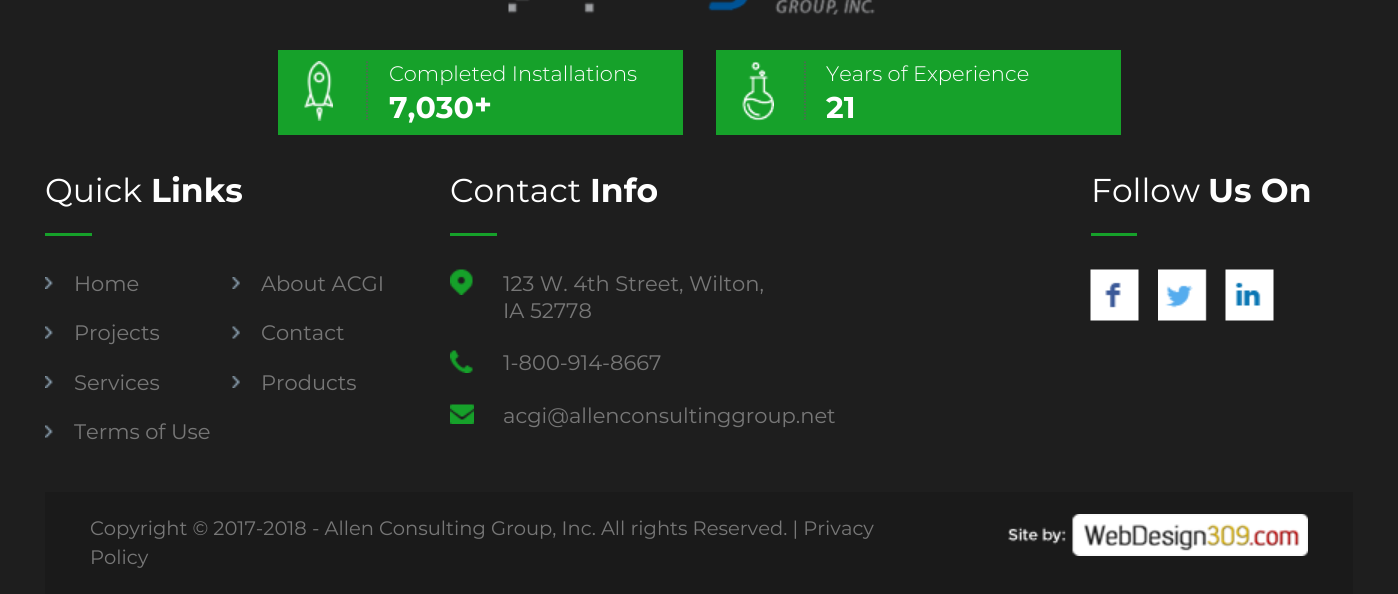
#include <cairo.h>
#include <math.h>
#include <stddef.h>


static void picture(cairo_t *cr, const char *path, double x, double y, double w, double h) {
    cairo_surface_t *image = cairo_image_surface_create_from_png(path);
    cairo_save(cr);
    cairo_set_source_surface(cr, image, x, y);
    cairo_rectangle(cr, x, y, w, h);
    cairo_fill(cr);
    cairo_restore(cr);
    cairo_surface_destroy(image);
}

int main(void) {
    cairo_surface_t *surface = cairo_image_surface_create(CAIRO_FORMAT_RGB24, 1398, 594);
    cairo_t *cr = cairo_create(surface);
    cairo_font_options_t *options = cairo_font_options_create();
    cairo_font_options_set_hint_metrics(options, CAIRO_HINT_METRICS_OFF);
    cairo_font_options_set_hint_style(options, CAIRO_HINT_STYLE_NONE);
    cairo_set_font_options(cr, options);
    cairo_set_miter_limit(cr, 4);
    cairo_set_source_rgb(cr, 0.118, 0.118, 0.118);
    cairo_paint(cr);
    picture(cr, "img1.png", 508, 0, 367, 15);
    cairo_set_source_rgb(cr, 0.086, 0.631, 0.165);
    cairo_rectangle(cr, 278, 50, 405, 85);
    cairo_fill(cr);
    cairo_new_path(cr);
    cairo_move_to(cr, 367, 61.5);
    cairo_line_to(cr, 367, 121.5);
    cairo_set_source_rgb(cr, 0.365, 0.365, 0.365);
    cairo_set_line_width(cr, 1.5);
    cairo_set_dash(cr, (double[]){1.5, 1.5}, 2, 0);
    cairo_stroke(cr);
    picture(cr, "img2.png", 304, 61, 29, 60);
    cairo_select_font_face(cr, "Montserrat Light", CAIRO_FONT_SLANT_NORMAL, CAIRO_FONT_WEIGHT_NORMAL);
    cairo_set_font_size(cr, 21);
    cairo_set_source_rgb(cr, 1, 1, 1);
    cairo_move_to(cr, 389, 81);
    cairo_show_text(cr, "Completed Installations");
    cairo_select_font_face(cr, "Montserrat", CAIRO_FONT_SLANT_NORMAL, CAIRO_FONT_WEIGHT_BOLD);
    cairo_set_font_size(cr, 30);
    cairo_move_to(cr, 389, 118);
    cairo_show_text(cr, "7,030");
    cairo_move_to(cr, 474, 115);
    cairo_show_text(cr, "+");
    cairo_set_source_rgb(cr, 0.086, 0.631, 0.165);
    cairo_rectangle(cr, 716, 50, 405, 85);
    cairo_fill(cr);
    cairo_new_path(cr);
    cairo_move_to(cr, 805, 61.5);
    cairo_line_to(cr, 805, 121.5);
    cairo_set_source_rgb(cr, 0.365, 0.365, 0.365);
    cairo_stroke(cr);
    picture(cr, "img3.png", 742, 61, 32, 60);
    cairo_select_font_face(cr, "Montserrat Light", CAIRO_FONT_SLANT_NORMAL, CAIRO_FONT_WEIGHT_NORMAL);
    cairo_set_font_size(cr, 21);
    cairo_set_source_rgb(cr, 1, 1, 1);
    cairo_move_to(cr, 826, 81);
    cairo_show_text(cr, "Years of Experience");
    cairo_select_font_face(cr, "Montserrat", CAIRO_FONT_SLANT_NORMAL, CAIRO_FONT_WEIGHT_BOLD);
    cairo_set_font_size(cr, 30);
    cairo_move_to(cr, 826, 118);
    cairo_show_text(cr, "21");
    cairo_select_font_face(cr, "Montserrat", CAIRO_FONT_SLANT_NORMAL, CAIRO_FONT_WEIGHT_NORMAL);
    cairo_set_font_size(cr, 33);
    cairo_move_to(cr, 45, 202);
    cairo_show_text(cr, "Quick");
    cairo_select_font_face(cr, "Montserrat", CAIRO_FONT_SLANT_NORMAL, CAIRO_FONT_WEIGHT_BOLD);
    cairo_move_to(cr, 151, 202);
    cairo_show_text(cr, "Links");
    cairo_set_source_rgb(cr, 0.086, 0.631, 0.165);
    cairo_rectangle(cr, 45, 233, 47, 3);
    cairo_fill(cr);
    picture(cr, "img4.png", 45, 277, 8, 12);
    cairo_select_font_face(cr, "Montserrat", CAIRO_FONT_SLANT_NORMAL, CAIRO_FONT_WEIGHT_NORMAL);
    cairo_set_font_size(cr, 21);
    cairo_set_source_rgb(cr, 0.467, 0.467, 0.467);
    cairo_move_to(cr, 74, 291);
    cairo_show_text(cr, "Home");
    picture(cr, "img5.png", 232, 277, 8, 12);
    cairo_move_to(cr, 261, 291);
    cairo_show_text(cr, "About ACGI");
    picture(cr, "img6.png", 45, 326, 8, 13);
    cairo_move_to(cr, 74, 340);
    cairo_show_text(cr, "Projects");
    picture(cr, "img7.png", 232, 326, 8, 13);
    cairo_move_to(cr, 261, 340);
    cairo_show_text(cr, "Contact");
    picture(cr, "img4.png", 45, 376, 8, 12);
    cairo_move_to(cr, 74, 390);
    cairo_show_text(cr, "Services");
    picture(cr, "img5.png", 232, 376, 8, 12);
    cairo_move_to(cr, 261, 390);
    cairo_show_text(cr, "Products");
    picture(cr, "img6.png", 45, 425, 8, 13);
    cairo_move_to(cr, 74, 439);
    cairo_show_text(cr, "Terms of Use");
    cairo_set_font_size(cr, 33);
    cairo_set_source_rgb(cr, 1, 1, 1);
    cairo_move_to(cr, 450, 202);
    cairo_show_text(cr, "Contact");
    cairo_select_font_face(cr, "Montserrat", CAIRO_FONT_SLANT_NORMAL, CAIRO_FONT_WEIGHT_BOLD);
    cairo_move_to(cr, 590, 202);
    cairo_show_text(cr, "Info");
    cairo_set_source_rgb(cr, 0.086, 0.631, 0.165);
    cairo_rectangle(cr, 450, 233, 47, 3);
    cairo_fill(cr);
    picture(cr, "img8.png", 450, 269, 23, 26);
    cairo_select_font_face(cr, "Montserrat", CAIRO_FONT_SLANT_NORMAL, CAIRO_FONT_WEIGHT_NORMAL);
    cairo_set_font_size(cr, 21);
    cairo_set_source_rgb(cr, 0.467, 0.467, 0.467);
    cairo_move_to(cr, 503, 291);
    cairo_show_text(cr, "123 W. 4th Street, Wilton,");
    cairo_move_to(cr, 503, 318);
    cairo_show_text(cr, "IA 52778");
    picture(cr, "img9.png", 450, 350, 23, 23);
    cairo_move_to(cr, 503, 370);
    cairo_show_text(cr, "1-800-914-8667");
    picture(cr, "img10.png", 450, 404, 24, 20);
    cairo_move_to(cr, 503, 423);
    cairo_show_text(cr, "acgi@allenconsultinggroup.net");
    cairo_set_font_size(cr, 33);
    cairo_set_source_rgb(cr, 1, 1, 1);
    cairo_move_to(cr, 1091, 202);
    cairo_show_text(cr, "Follow");
    cairo_select_font_face(cr, "Montserrat", CAIRO_FONT_SLANT_NORMAL, CAIRO_FONT_WEIGHT_BOLD);
    cairo_move_to(cr, 1208, 202);
    cairo_show_text(cr, "Us On");
    cairo_set_source_rgb(cr, 0.086, 0.631, 0.165);
    cairo_rectangle(cr, 1091, 233, 46, 3);
    cairo_fill(cr);
    picture(cr, "img11.png", 1090, 269, 49, 52);
    picture(cr, "img12.png", 1158, 269, 49, 52);
    picture(cr, "img13.png", 1225, 269, 49, 52);
    cairo_set_source_rgb(cr, 0.102, 0.102, 0.102);
    cairo_rectangle(cr, 45, 492, 1308, 102);
    cairo_fill(cr);
    cairo_select_font_face(cr, "Montserrat", CAIRO_FONT_SLANT_NORMAL, CAIRO_FONT_WEIGHT_NORMAL);
    cairo_set_font_size(cr, 19.5);
    cairo_set_source_rgb(cr, 0.467, 0.467, 0.467);
    cairo_move_to(cr, 90, 535);
    cairo_show_text(cr, "Copyright © 2017-2018 - Allen Consulting Group, Inc. All rights Reserved. | Privacy");
    cairo_move_to(cr, 90, 564);
    cairo_show_text(cr, "Policy");
    picture(cr, "img14.png", 1008, 514, 300, 42);
    cairo_surface_write_to_png(surface, "page.png");
    cairo_font_options_destroy(options);
    cairo_destroy(cr);
    cairo_surface_destroy(surface);
    return 0;
}
